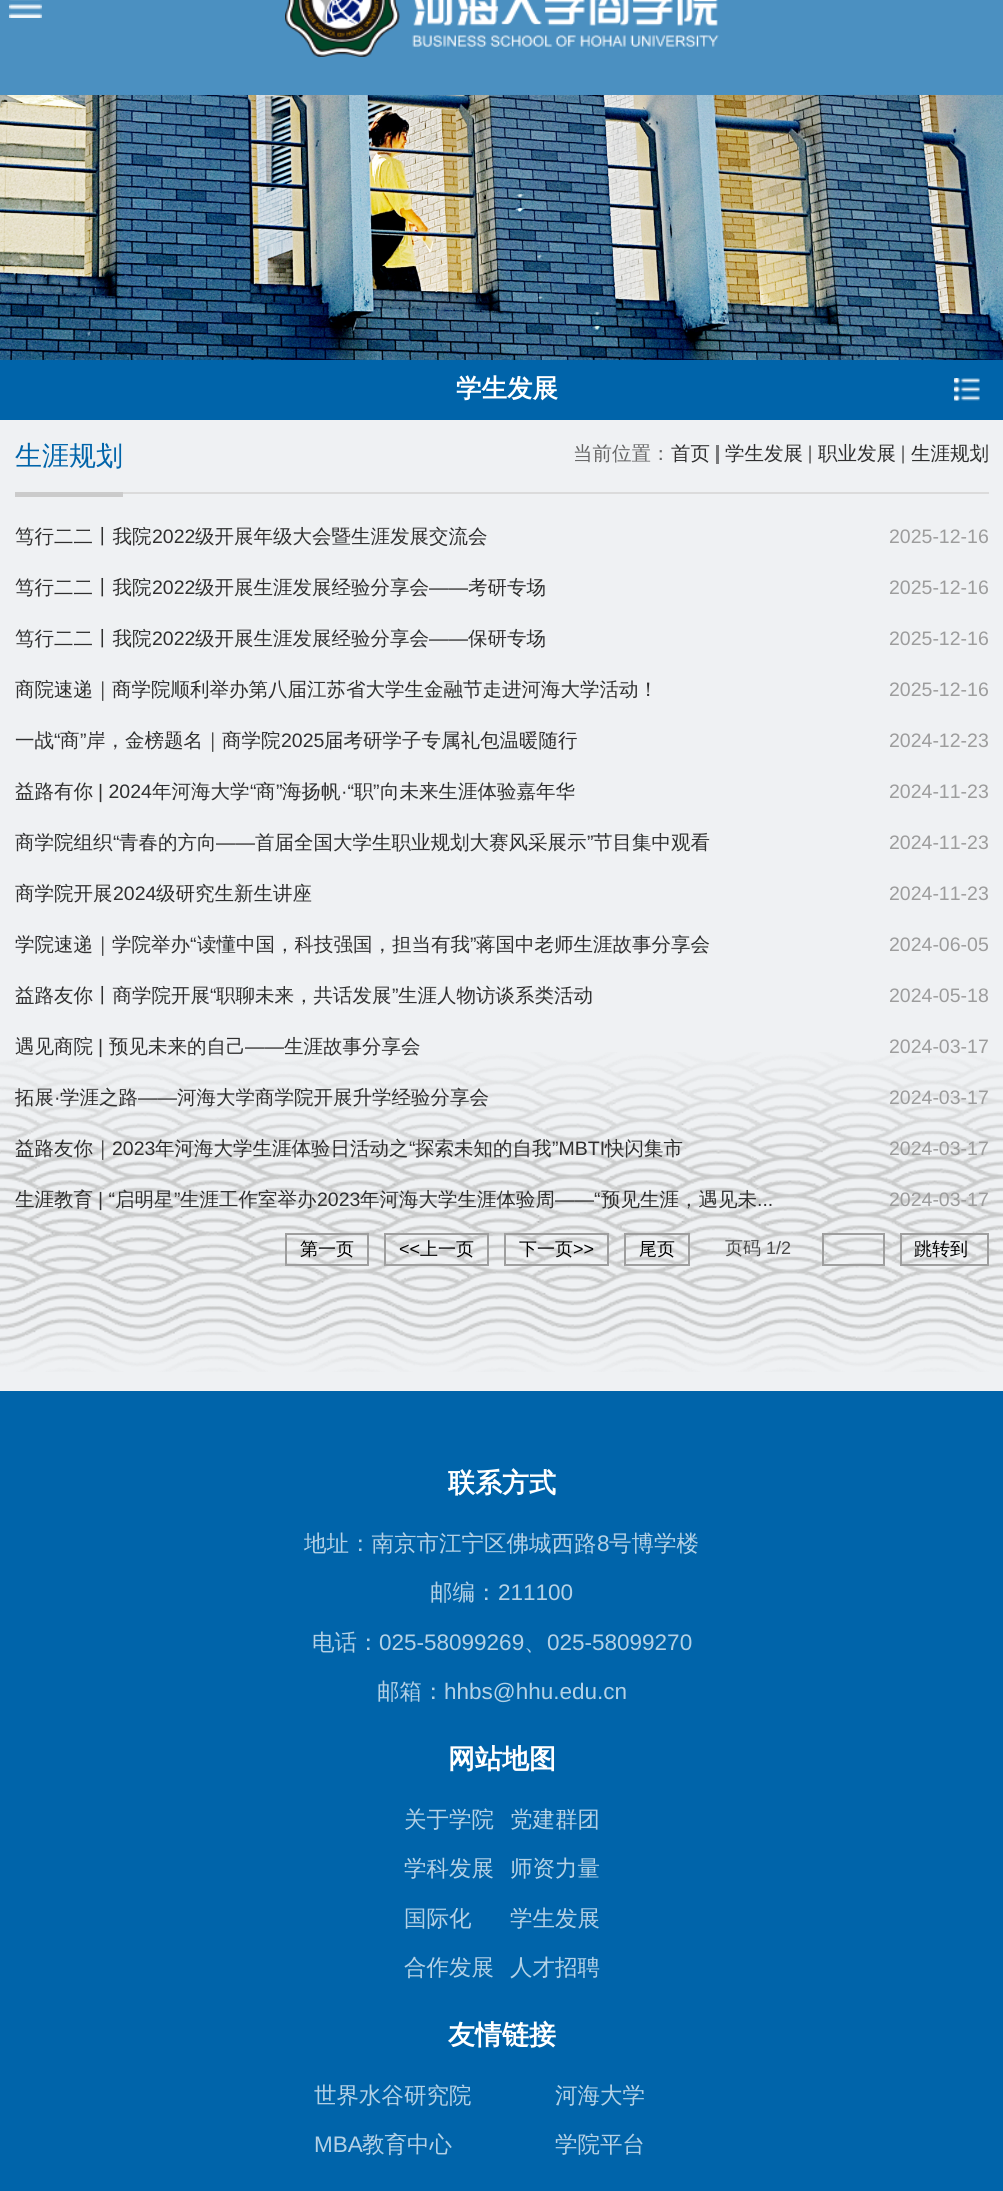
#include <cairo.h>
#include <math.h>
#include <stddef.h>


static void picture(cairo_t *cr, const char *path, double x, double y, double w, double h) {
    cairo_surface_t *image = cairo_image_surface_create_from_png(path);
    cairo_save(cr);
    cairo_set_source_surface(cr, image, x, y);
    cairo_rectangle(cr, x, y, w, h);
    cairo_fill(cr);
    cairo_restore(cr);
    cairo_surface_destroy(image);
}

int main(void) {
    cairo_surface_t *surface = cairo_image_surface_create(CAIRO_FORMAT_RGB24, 1003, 2191);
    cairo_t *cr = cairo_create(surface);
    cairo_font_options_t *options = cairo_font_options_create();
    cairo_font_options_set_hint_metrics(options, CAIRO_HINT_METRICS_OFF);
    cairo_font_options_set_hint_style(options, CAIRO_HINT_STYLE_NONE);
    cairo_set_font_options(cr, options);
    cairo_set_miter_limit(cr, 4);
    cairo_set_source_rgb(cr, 0.937, 0.945, 0.953);
    cairo_paint(cr);
    cairo_set_source_rgb(cr, 0.294, 0.565, 0.757);
    cairo_rectangle(cr, 0, 0, 1003, 95);
    cairo_fill(cr);
    picture(cr, "img1.png", 9, 0, 33, 18);
    picture(cr, "img2.png", 285, 0, 434, 57);
    picture(cr, "img3.png", 0, 95, 1003, 265);
    picture(cr, "img4.png", 0, 1052, 1003, 320);
    cairo_set_source_rgb(cr, 0, 0.392, 0.667);
    cairo_rectangle(cr, 0, 360, 1003, 60);
    cairo_fill(cr);
    cairo_select_font_face(cr, "WenQuanYi Zen Hei", CAIRO_FONT_SLANT_NORMAL, CAIRO_FONT_WEIGHT_BOLD);
    cairo_set_font_size(cr, 25.5);
    cairo_set_source_rgb(cr, 1, 1, 1);
    cairo_move_to(cr, 456, 397);
    cairo_show_text(cr, "学生发展");
    picture(cr, "img5.png", 954, 378, 26, 23);
    cairo_set_source_rgb(cr, 0.859, 0.859, 0.859);
    cairo_rectangle(cr, 123, 492, 866, 2);
    cairo_fill(cr);
    cairo_set_source_rgb(cr, 0.796, 0.796, 0.796);
    cairo_rectangle(cr, 15, 492, 108, 5);
    cairo_fill(cr);
    cairo_select_font_face(cr, "WenQuanYi Zen Hei Medium", CAIRO_FONT_SLANT_NORMAL, CAIRO_FONT_WEIGHT_NORMAL);
    cairo_set_font_size(cr, 27);
    cairo_set_source_rgb(cr, 0, 0.392, 0.667);
    cairo_move_to(cr, 15, 465);
    cairo_show_text(cr, "生涯规划");
    cairo_set_font_size(cr, 19.5);
    cairo_set_source_rgb(cr, 0.4, 0.4, 0.4);
    cairo_move_to(cr, 573, 460);
    cairo_show_text(cr, "当前位置：");
    cairo_set_source_rgb(cr, 0.184, 0.184, 0.184);
    cairo_move_to(cr, 671, 460);
    cairo_show_text(cr, "首页");
    cairo_set_source_rgb(cr, 0.471, 0.475, 0.478);
    cairo_rectangle(cr, 716, 445, 3, 19);
    cairo_fill(cr);
    cairo_set_source_rgb(cr, 0.184, 0.184, 0.184);
    cairo_move_to(cr, 725, 460);
    cairo_show_text(cr, "学生发展");
    picture(cr, "img6.png", 809, 445, 2, 19);
    cairo_move_to(cr, 818, 460);
    cairo_show_text(cr, "职业发展");
    picture(cr, "img6.png", 902, 445, 2, 19);
    cairo_move_to(cr, 911, 460);
    cairo_show_text(cr, "生涯规划");
    cairo_move_to(cr, 15, 543);
    cairo_show_text(cr, "笃行二二丨我院");
    cairo_select_font_face(cr, "Liberation Sans", CAIRO_FONT_SLANT_NORMAL, CAIRO_FONT_WEIGHT_NORMAL);
    cairo_move_to(cr, 152, 543);
    cairo_show_text(cr, "2022");
    cairo_select_font_face(cr, "WenQuanYi Zen Hei Medium", CAIRO_FONT_SLANT_NORMAL, CAIRO_FONT_WEIGHT_NORMAL);
    cairo_move_to(cr, 195, 543);
    cairo_show_text(cr, "级开展年级大会暨生涯发展交流会");
    cairo_select_font_face(cr, "Liberation Sans", CAIRO_FONT_SLANT_NORMAL, CAIRO_FONT_WEIGHT_NORMAL);
    cairo_set_source_rgb(cr, 0.612, 0.612, 0.612);
    cairo_move_to(cr, 889, 543);
    cairo_show_text(cr, "2025-12-16");
    cairo_select_font_face(cr, "WenQuanYi Zen Hei Medium", CAIRO_FONT_SLANT_NORMAL, CAIRO_FONT_WEIGHT_NORMAL);
    cairo_set_source_rgb(cr, 0.184, 0.184, 0.184);
    cairo_move_to(cr, 15, 594);
    cairo_show_text(cr, "笃行二二丨我院");
    cairo_select_font_face(cr, "Liberation Sans", CAIRO_FONT_SLANT_NORMAL, CAIRO_FONT_WEIGHT_NORMAL);
    cairo_move_to(cr, 152, 594);
    cairo_show_text(cr, "2022");
    cairo_select_font_face(cr, "WenQuanYi Zen Hei Medium", CAIRO_FONT_SLANT_NORMAL, CAIRO_FONT_WEIGHT_NORMAL);
    cairo_move_to(cr, 195, 594);
    cairo_show_text(cr, "级开展生涯发展经验分享会");
    cairo_select_font_face(cr, "Liberation Sans", CAIRO_FONT_SLANT_NORMAL, CAIRO_FONT_WEIGHT_NORMAL);
    cairo_move_to(cr, 429, 594);
    cairo_show_text(cr, "——");
    cairo_select_font_face(cr, "WenQuanYi Zen Hei Medium", CAIRO_FONT_SLANT_NORMAL, CAIRO_FONT_WEIGHT_NORMAL);
    cairo_move_to(cr, 468, 594);
    cairo_show_text(cr, "考研专场");
    cairo_select_font_face(cr, "Liberation Sans", CAIRO_FONT_SLANT_NORMAL, CAIRO_FONT_WEIGHT_NORMAL);
    cairo_set_source_rgb(cr, 0.612, 0.612, 0.612);
    cairo_move_to(cr, 889, 594);
    cairo_show_text(cr, "2025-12-16");
    cairo_select_font_face(cr, "WenQuanYi Zen Hei Medium", CAIRO_FONT_SLANT_NORMAL, CAIRO_FONT_WEIGHT_NORMAL);
    cairo_set_source_rgb(cr, 0.184, 0.184, 0.184);
    cairo_move_to(cr, 15, 645);
    cairo_show_text(cr, "笃行二二丨我院");
    cairo_select_font_face(cr, "Liberation Sans", CAIRO_FONT_SLANT_NORMAL, CAIRO_FONT_WEIGHT_NORMAL);
    cairo_move_to(cr, 152, 645);
    cairo_show_text(cr, "2022");
    cairo_select_font_face(cr, "WenQuanYi Zen Hei Medium", CAIRO_FONT_SLANT_NORMAL, CAIRO_FONT_WEIGHT_NORMAL);
    cairo_move_to(cr, 195, 645);
    cairo_show_text(cr, "级开展生涯发展经验分享会");
    cairo_select_font_face(cr, "Liberation Sans", CAIRO_FONT_SLANT_NORMAL, CAIRO_FONT_WEIGHT_NORMAL);
    cairo_move_to(cr, 429, 645);
    cairo_show_text(cr, "——");
    cairo_select_font_face(cr, "WenQuanYi Zen Hei Medium", CAIRO_FONT_SLANT_NORMAL, CAIRO_FONT_WEIGHT_NORMAL);
    cairo_move_to(cr, 468, 645);
    cairo_show_text(cr, "保研专场");
    cairo_select_font_face(cr, "Liberation Sans", CAIRO_FONT_SLANT_NORMAL, CAIRO_FONT_WEIGHT_NORMAL);
    cairo_set_source_rgb(cr, 0.612, 0.612, 0.612);
    cairo_move_to(cr, 889, 645);
    cairo_show_text(cr, "2025-12-16");
    cairo_select_font_face(cr, "WenQuanYi Zen Hei Medium", CAIRO_FONT_SLANT_NORMAL, CAIRO_FONT_WEIGHT_NORMAL);
    cairo_set_source_rgb(cr, 0.184, 0.184, 0.184);
    cairo_move_to(cr, 15, 696);
    cairo_show_text(cr, "商院速递｜商学院顺利举办第八届江苏省大学生金融节走进河海大学活动！");
    cairo_select_font_face(cr, "Liberation Sans", CAIRO_FONT_SLANT_NORMAL, CAIRO_FONT_WEIGHT_NORMAL);
    cairo_set_source_rgb(cr, 0.612, 0.612, 0.612);
    cairo_move_to(cr, 889, 696);
    cairo_show_text(cr, "2025-12-16");
    cairo_select_font_face(cr, "WenQuanYi Zen Hei Medium", CAIRO_FONT_SLANT_NORMAL, CAIRO_FONT_WEIGHT_NORMAL);
    cairo_set_source_rgb(cr, 0.184, 0.184, 0.184);
    cairo_move_to(cr, 15, 747);
    cairo_show_text(cr, "一战");
    cairo_select_font_face(cr, "Liberation Sans", CAIRO_FONT_SLANT_NORMAL, CAIRO_FONT_WEIGHT_NORMAL);
    cairo_move_to(cr, 54, 747);
    cairo_show_text(cr, "“");
    cairo_select_font_face(cr, "WenQuanYi Zen Hei Medium", CAIRO_FONT_SLANT_NORMAL, CAIRO_FONT_WEIGHT_NORMAL);
    cairo_move_to(cr, 60, 747);
    cairo_show_text(cr, "商");
    cairo_select_font_face(cr, "Liberation Sans", CAIRO_FONT_SLANT_NORMAL, CAIRO_FONT_WEIGHT_NORMAL);
    cairo_move_to(cr, 80, 747);
    cairo_show_text(cr, "”");
    cairo_select_font_face(cr, "WenQuanYi Zen Hei Medium", CAIRO_FONT_SLANT_NORMAL, CAIRO_FONT_WEIGHT_NORMAL);
    cairo_move_to(cr, 86, 747);
    cairo_show_text(cr, "岸，金榜题名｜商学院");
    cairo_select_font_face(cr, "Liberation Sans", CAIRO_FONT_SLANT_NORMAL, CAIRO_FONT_WEIGHT_NORMAL);
    cairo_move_to(cr, 281, 747);
    cairo_show_text(cr, "2025");
    cairo_select_font_face(cr, "WenQuanYi Zen Hei Medium", CAIRO_FONT_SLANT_NORMAL, CAIRO_FONT_WEIGHT_NORMAL);
    cairo_move_to(cr, 324, 747);
    cairo_show_text(cr, "届考研学子专属礼包温暖随行");
    cairo_select_font_face(cr, "Liberation Sans", CAIRO_FONT_SLANT_NORMAL, CAIRO_FONT_WEIGHT_NORMAL);
    cairo_set_source_rgb(cr, 0.612, 0.612, 0.612);
    cairo_move_to(cr, 889, 747);
    cairo_show_text(cr, "2024-12-23");
    cairo_select_font_face(cr, "WenQuanYi Zen Hei Medium", CAIRO_FONT_SLANT_NORMAL, CAIRO_FONT_WEIGHT_NORMAL);
    cairo_set_source_rgb(cr, 0.184, 0.184, 0.184);
    cairo_move_to(cr, 15, 798);
    cairo_show_text(cr, "益路有你");
    cairo_select_font_face(cr, "Liberation Sans", CAIRO_FONT_SLANT_NORMAL, CAIRO_FONT_WEIGHT_NORMAL);
    cairo_move_to(cr, 98, 798);
    cairo_show_text(cr, "| 2024");
    cairo_select_font_face(cr, "WenQuanYi Zen Hei Medium", CAIRO_FONT_SLANT_NORMAL, CAIRO_FONT_WEIGHT_NORMAL);
    cairo_move_to(cr, 152, 798);
    cairo_show_text(cr, "年河海大学");
    cairo_select_font_face(cr, "Liberation Sans", CAIRO_FONT_SLANT_NORMAL, CAIRO_FONT_WEIGHT_NORMAL);
    cairo_move_to(cr, 250, 798);
    cairo_show_text(cr, "“");
    cairo_select_font_face(cr, "WenQuanYi Zen Hei Medium", CAIRO_FONT_SLANT_NORMAL, CAIRO_FONT_WEIGHT_NORMAL);
    cairo_move_to(cr, 256, 798);
    cairo_show_text(cr, "商");
    cairo_select_font_face(cr, "Liberation Sans", CAIRO_FONT_SLANT_NORMAL, CAIRO_FONT_WEIGHT_NORMAL);
    cairo_move_to(cr, 276, 798);
    cairo_show_text(cr, "”");
    cairo_select_font_face(cr, "WenQuanYi Zen Hei Medium", CAIRO_FONT_SLANT_NORMAL, CAIRO_FONT_WEIGHT_NORMAL);
    cairo_move_to(cr, 282, 798);
    cairo_show_text(cr, "海扬帆");
    cairo_select_font_face(cr, "Liberation Sans", CAIRO_FONT_SLANT_NORMAL, CAIRO_FONT_WEIGHT_NORMAL);
    cairo_move_to(cr, 341, 798);
    cairo_show_text(cr, "·“");
    cairo_select_font_face(cr, "WenQuanYi Zen Hei Medium", CAIRO_FONT_SLANT_NORMAL, CAIRO_FONT_WEIGHT_NORMAL);
    cairo_move_to(cr, 354, 798);
    cairo_show_text(cr, "职");
    cairo_select_font_face(cr, "Liberation Sans", CAIRO_FONT_SLANT_NORMAL, CAIRO_FONT_WEIGHT_NORMAL);
    cairo_move_to(cr, 373, 798);
    cairo_show_text(cr, "”");
    cairo_select_font_face(cr, "WenQuanYi Zen Hei Medium", CAIRO_FONT_SLANT_NORMAL, CAIRO_FONT_WEIGHT_NORMAL);
    cairo_move_to(cr, 380, 798);
    cairo_show_text(cr, "向未来生涯体验嘉年华");
    cairo_select_font_face(cr, "Liberation Sans", CAIRO_FONT_SLANT_NORMAL, CAIRO_FONT_WEIGHT_NORMAL);
    cairo_set_source_rgb(cr, 0.612, 0.612, 0.612);
    cairo_move_to(cr, 889, 798);
    cairo_show_text(cr, "2024-11-23");
    cairo_select_font_face(cr, "WenQuanYi Zen Hei Medium", CAIRO_FONT_SLANT_NORMAL, CAIRO_FONT_WEIGHT_NORMAL);
    cairo_set_source_rgb(cr, 0.184, 0.184, 0.184);
    cairo_move_to(cr, 15, 849);
    cairo_show_text(cr, "商学院组织");
    cairo_select_font_face(cr, "Liberation Sans", CAIRO_FONT_SLANT_NORMAL, CAIRO_FONT_WEIGHT_NORMAL);
    cairo_move_to(cr, 113, 849);
    cairo_show_text(cr, "“");
    cairo_select_font_face(cr, "WenQuanYi Zen Hei Medium", CAIRO_FONT_SLANT_NORMAL, CAIRO_FONT_WEIGHT_NORMAL);
    cairo_move_to(cr, 119, 849);
    cairo_show_text(cr, "青春的方向");
    cairo_select_font_face(cr, "Liberation Sans", CAIRO_FONT_SLANT_NORMAL, CAIRO_FONT_WEIGHT_NORMAL);
    cairo_move_to(cr, 216, 849);
    cairo_show_text(cr, "——");
    cairo_select_font_face(cr, "WenQuanYi Zen Hei Medium", CAIRO_FONT_SLANT_NORMAL, CAIRO_FONT_WEIGHT_NORMAL);
    cairo_move_to(cr, 255, 849);
    cairo_show_text(cr, "首届全国大学生职业规划大赛风采展示");
    cairo_select_font_face(cr, "Liberation Sans", CAIRO_FONT_SLANT_NORMAL, CAIRO_FONT_WEIGHT_NORMAL);
    cairo_move_to(cr, 587, 849);
    cairo_show_text(cr, "”");
    cairo_select_font_face(cr, "WenQuanYi Zen Hei Medium", CAIRO_FONT_SLANT_NORMAL, CAIRO_FONT_WEIGHT_NORMAL);
    cairo_move_to(cr, 593, 849);
    cairo_show_text(cr, "节目集中观看");
    cairo_select_font_face(cr, "Liberation Sans", CAIRO_FONT_SLANT_NORMAL, CAIRO_FONT_WEIGHT_NORMAL);
    cairo_set_source_rgb(cr, 0.612, 0.612, 0.612);
    cairo_move_to(cr, 889, 849);
    cairo_show_text(cr, "2024-11-23");
    cairo_select_font_face(cr, "WenQuanYi Zen Hei Medium", CAIRO_FONT_SLANT_NORMAL, CAIRO_FONT_WEIGHT_NORMAL);
    cairo_set_source_rgb(cr, 0.184, 0.184, 0.184);
    cairo_move_to(cr, 15, 900);
    cairo_show_text(cr, "商学院开展");
    cairo_select_font_face(cr, "Liberation Sans", CAIRO_FONT_SLANT_NORMAL, CAIRO_FONT_WEIGHT_NORMAL);
    cairo_move_to(cr, 113, 900);
    cairo_show_text(cr, "2024");
    cairo_select_font_face(cr, "WenQuanYi Zen Hei Medium", CAIRO_FONT_SLANT_NORMAL, CAIRO_FONT_WEIGHT_NORMAL);
    cairo_move_to(cr, 156, 900);
    cairo_show_text(cr, "级研究生新生讲座");
    cairo_select_font_face(cr, "Liberation Sans", CAIRO_FONT_SLANT_NORMAL, CAIRO_FONT_WEIGHT_NORMAL);
    cairo_set_source_rgb(cr, 0.612, 0.612, 0.612);
    cairo_move_to(cr, 889, 900);
    cairo_show_text(cr, "2024-11-23");
    cairo_select_font_face(cr, "WenQuanYi Zen Hei Medium", CAIRO_FONT_SLANT_NORMAL, CAIRO_FONT_WEIGHT_NORMAL);
    cairo_set_source_rgb(cr, 0.184, 0.184, 0.184);
    cairo_move_to(cr, 15, 951);
    cairo_show_text(cr, "学院速递｜学院举办");
    cairo_select_font_face(cr, "Liberation Sans", CAIRO_FONT_SLANT_NORMAL, CAIRO_FONT_WEIGHT_NORMAL);
    cairo_move_to(cr, 190, 951);
    cairo_show_text(cr, "“");
    cairo_select_font_face(cr, "WenQuanYi Zen Hei Medium", CAIRO_FONT_SLANT_NORMAL, CAIRO_FONT_WEIGHT_NORMAL);
    cairo_move_to(cr, 197, 951);
    cairo_show_text(cr, "读懂中国，科技强国，担当有我");
    cairo_select_font_face(cr, "Liberation Sans", CAIRO_FONT_SLANT_NORMAL, CAIRO_FONT_WEIGHT_NORMAL);
    cairo_move_to(cr, 470, 951);
    cairo_show_text(cr, "”");
    cairo_select_font_face(cr, "WenQuanYi Zen Hei Medium", CAIRO_FONT_SLANT_NORMAL, CAIRO_FONT_WEIGHT_NORMAL);
    cairo_move_to(cr, 476, 951);
    cairo_show_text(cr, "蒋国中老师生涯故事分享会");
    cairo_select_font_face(cr, "Liberation Sans", CAIRO_FONT_SLANT_NORMAL, CAIRO_FONT_WEIGHT_NORMAL);
    cairo_set_source_rgb(cr, 0.612, 0.612, 0.612);
    cairo_move_to(cr, 889, 951);
    cairo_show_text(cr, "2024-06-05");
    cairo_select_font_face(cr, "WenQuanYi Zen Hei Medium", CAIRO_FONT_SLANT_NORMAL, CAIRO_FONT_WEIGHT_NORMAL);
    cairo_set_source_rgb(cr, 0.184, 0.184, 0.184);
    cairo_move_to(cr, 15, 1002);
    cairo_show_text(cr, "益路友你丨商学院开展");
    cairo_select_font_face(cr, "Liberation Sans", CAIRO_FONT_SLANT_NORMAL, CAIRO_FONT_WEIGHT_NORMAL);
    cairo_move_to(cr, 210, 1002);
    cairo_show_text(cr, "“");
    cairo_select_font_face(cr, "WenQuanYi Zen Hei Medium", CAIRO_FONT_SLANT_NORMAL, CAIRO_FONT_WEIGHT_NORMAL);
    cairo_move_to(cr, 216, 1002);
    cairo_show_text(cr, "职聊未来，共话发展");
    cairo_select_font_face(cr, "Liberation Sans", CAIRO_FONT_SLANT_NORMAL, CAIRO_FONT_WEIGHT_NORMAL);
    cairo_move_to(cr, 392, 1002);
    cairo_show_text(cr, "”");
    cairo_select_font_face(cr, "WenQuanYi Zen Hei Medium", CAIRO_FONT_SLANT_NORMAL, CAIRO_FONT_WEIGHT_NORMAL);
    cairo_move_to(cr, 398, 1002);
    cairo_show_text(cr, "生涯人物访谈系类活动");
    cairo_select_font_face(cr, "Liberation Sans", CAIRO_FONT_SLANT_NORMAL, CAIRO_FONT_WEIGHT_NORMAL);
    cairo_set_source_rgb(cr, 0.612, 0.612, 0.612);
    cairo_move_to(cr, 889, 1002);
    cairo_show_text(cr, "2024-05-18");
    cairo_select_font_face(cr, "WenQuanYi Zen Hei Medium", CAIRO_FONT_SLANT_NORMAL, CAIRO_FONT_WEIGHT_NORMAL);
    cairo_set_source_rgb(cr, 0.184, 0.184, 0.184);
    cairo_move_to(cr, 15, 1053);
    cairo_show_text(cr, "遇见商院");
    cairo_select_font_face(cr, "Liberation Sans", CAIRO_FONT_SLANT_NORMAL, CAIRO_FONT_WEIGHT_NORMAL);
    cairo_move_to(cr, 98, 1053);
    cairo_show_text(cr, "|");
    cairo_select_font_face(cr, "WenQuanYi Zen Hei Medium", CAIRO_FONT_SLANT_NORMAL, CAIRO_FONT_WEIGHT_NORMAL);
    cairo_move_to(cr, 109, 1053);
    cairo_show_text(cr, "预见未来的自己");
    cairo_select_font_face(cr, "Liberation Sans", CAIRO_FONT_SLANT_NORMAL, CAIRO_FONT_WEIGHT_NORMAL);
    cairo_move_to(cr, 245, 1053);
    cairo_show_text(cr, "——");
    cairo_select_font_face(cr, "WenQuanYi Zen Hei Medium", CAIRO_FONT_SLANT_NORMAL, CAIRO_FONT_WEIGHT_NORMAL);
    cairo_move_to(cr, 284, 1053);
    cairo_show_text(cr, "生涯故事分享会");
    cairo_select_font_face(cr, "Liberation Sans", CAIRO_FONT_SLANT_NORMAL, CAIRO_FONT_WEIGHT_NORMAL);
    cairo_set_source_rgb(cr, 0.612, 0.612, 0.612);
    cairo_move_to(cr, 889, 1053);
    cairo_show_text(cr, "2024-03-17");
    cairo_select_font_face(cr, "WenQuanYi Zen Hei Medium", CAIRO_FONT_SLANT_NORMAL, CAIRO_FONT_WEIGHT_NORMAL);
    cairo_set_source_rgb(cr, 0.184, 0.184, 0.184);
    cairo_move_to(cr, 15, 1104);
    cairo_show_text(cr, "拓展");
    cairo_select_font_face(cr, "Liberation Sans", CAIRO_FONT_SLANT_NORMAL, CAIRO_FONT_WEIGHT_NORMAL);
    cairo_move_to(cr, 54, 1104);
    cairo_show_text(cr, "·");
    cairo_select_font_face(cr, "WenQuanYi Zen Hei Medium", CAIRO_FONT_SLANT_NORMAL, CAIRO_FONT_WEIGHT_NORMAL);
    cairo_move_to(cr, 60, 1104);
    cairo_show_text(cr, "学涯之路");
    cairo_select_font_face(cr, "Liberation Sans", CAIRO_FONT_SLANT_NORMAL, CAIRO_FONT_WEIGHT_NORMAL);
    cairo_move_to(cr, 138, 1104);
    cairo_show_text(cr, "——");
    cairo_select_font_face(cr, "WenQuanYi Zen Hei Medium", CAIRO_FONT_SLANT_NORMAL, CAIRO_FONT_WEIGHT_NORMAL);
    cairo_move_to(cr, 177, 1104);
    cairo_show_text(cr, "河海大学商学院开展升学经验分享会");
    cairo_select_font_face(cr, "Liberation Sans", CAIRO_FONT_SLANT_NORMAL, CAIRO_FONT_WEIGHT_NORMAL);
    cairo_set_source_rgb(cr, 0.612, 0.612, 0.612);
    cairo_move_to(cr, 889, 1104);
    cairo_show_text(cr, "2024-03-17");
    cairo_select_font_face(cr, "WenQuanYi Zen Hei Medium", CAIRO_FONT_SLANT_NORMAL, CAIRO_FONT_WEIGHT_NORMAL);
    cairo_set_source_rgb(cr, 0.184, 0.184, 0.184);
    cairo_move_to(cr, 15, 1155);
    cairo_show_text(cr, "益路友你｜");
    cairo_select_font_face(cr, "Liberation Sans", CAIRO_FONT_SLANT_NORMAL, CAIRO_FONT_WEIGHT_NORMAL);
    cairo_move_to(cr, 112, 1155);
    cairo_show_text(cr, "2023");
    cairo_select_font_face(cr, "WenQuanYi Zen Hei Medium", CAIRO_FONT_SLANT_NORMAL, CAIRO_FONT_WEIGHT_NORMAL);
    cairo_move_to(cr, 155, 1155);
    cairo_show_text(cr, "年河海大学生涯体验日活动之");
    cairo_select_font_face(cr, "Liberation Sans", CAIRO_FONT_SLANT_NORMAL, CAIRO_FONT_WEIGHT_NORMAL);
    cairo_move_to(cr, 409, 1155);
    cairo_show_text(cr, "“");
    cairo_select_font_face(cr, "WenQuanYi Zen Hei Medium", CAIRO_FONT_SLANT_NORMAL, CAIRO_FONT_WEIGHT_NORMAL);
    cairo_move_to(cr, 415, 1155);
    cairo_show_text(cr, "探索未知的自我");
    cairo_select_font_face(cr, "Liberation Sans", CAIRO_FONT_SLANT_NORMAL, CAIRO_FONT_WEIGHT_NORMAL);
    cairo_move_to(cr, 552, 1155);
    cairo_show_text(cr, "”MBTI");
    cairo_select_font_face(cr, "WenQuanYi Zen Hei Medium", CAIRO_FONT_SLANT_NORMAL, CAIRO_FONT_WEIGHT_NORMAL);
    cairo_move_to(cr, 605, 1155);
    cairo_show_text(cr, "快闪集市");
    cairo_select_font_face(cr, "Liberation Sans", CAIRO_FONT_SLANT_NORMAL, CAIRO_FONT_WEIGHT_NORMAL);
    cairo_set_source_rgb(cr, 0.612, 0.612, 0.612);
    cairo_move_to(cr, 889, 1155);
    cairo_show_text(cr, "2024-03-17");
    cairo_select_font_face(cr, "WenQuanYi Zen Hei Medium", CAIRO_FONT_SLANT_NORMAL, CAIRO_FONT_WEIGHT_NORMAL);
    cairo_set_source_rgb(cr, 0.184, 0.184, 0.184);
    cairo_move_to(cr, 15, 1206);
    cairo_show_text(cr, "生涯教育");
    cairo_select_font_face(cr, "Liberation Sans", CAIRO_FONT_SLANT_NORMAL, CAIRO_FONT_WEIGHT_NORMAL);
    cairo_move_to(cr, 98, 1206);
    cairo_show_text(cr, "| “");
    cairo_select_font_face(cr, "WenQuanYi Zen Hei Medium", CAIRO_FONT_SLANT_NORMAL, CAIRO_FONT_WEIGHT_NORMAL);
    cairo_move_to(cr, 115, 1206);
    cairo_show_text(cr, "启明星");
    cairo_select_font_face(cr, "Liberation Sans", CAIRO_FONT_SLANT_NORMAL, CAIRO_FONT_WEIGHT_NORMAL);
    cairo_move_to(cr, 174, 1206);
    cairo_show_text(cr, "”");
    cairo_select_font_face(cr, "WenQuanYi Zen Hei Medium", CAIRO_FONT_SLANT_NORMAL, CAIRO_FONT_WEIGHT_NORMAL);
    cairo_move_to(cr, 180, 1206);
    cairo_show_text(cr, "生涯工作室举办");
    cairo_select_font_face(cr, "Liberation Sans", CAIRO_FONT_SLANT_NORMAL, CAIRO_FONT_WEIGHT_NORMAL);
    cairo_move_to(cr, 317, 1206);
    cairo_show_text(cr, "2023");
    cairo_select_font_face(cr, "WenQuanYi Zen Hei Medium", CAIRO_FONT_SLANT_NORMAL, CAIRO_FONT_WEIGHT_NORMAL);
    cairo_move_to(cr, 360, 1206);
    cairo_show_text(cr, "年河海大学生涯体验周");
    cairo_select_font_face(cr, "Liberation Sans", CAIRO_FONT_SLANT_NORMAL, CAIRO_FONT_WEIGHT_NORMAL);
    cairo_move_to(cr, 555, 1206);
    cairo_show_text(cr, "——“");
    cairo_select_font_face(cr, "WenQuanYi Zen Hei Medium", CAIRO_FONT_SLANT_NORMAL, CAIRO_FONT_WEIGHT_NORMAL);
    cairo_move_to(cr, 601, 1206);
    cairo_show_text(cr, "预见生涯，遇见未");
    cairo_select_font_face(cr, "Liberation Sans", CAIRO_FONT_SLANT_NORMAL, CAIRO_FONT_WEIGHT_NORMAL);
    cairo_move_to(cr, 757, 1206);
    cairo_show_text(cr, "...");
    cairo_set_source_rgb(cr, 0.612, 0.612, 0.612);
    cairo_move_to(cr, 889, 1206);
    cairo_show_text(cr, "2024-03-17");
    cairo_rectangle(cr, 286, 1234, 82, 31);
    cairo_set_source_rgb(cr, 0.62, 0.62, 0.62);
    cairo_stroke(cr);
    cairo_select_font_face(cr, "WenQuanYi Zen Hei Medium", CAIRO_FONT_SLANT_NORMAL, CAIRO_FONT_WEIGHT_NORMAL);
    cairo_set_font_size(cr, 18);
    cairo_set_source_rgb(cr, 0, 0, 0);
    cairo_move_to(cr, 300, 1255);
    cairo_show_text(cr, "第一页");
    cairo_rectangle(cr, 385, 1234, 103, 31);
    cairo_set_source_rgb(cr, 0.62, 0.62, 0.62);
    cairo_stroke(cr);
    cairo_select_font_face(cr, "Liberation Sans", CAIRO_FONT_SLANT_NORMAL, CAIRO_FONT_WEIGHT_NORMAL);
    cairo_set_source_rgb(cr, 0, 0, 0);
    cairo_move_to(cr, 399, 1255);
    cairo_show_text(cr, "<<");
    cairo_select_font_face(cr, "WenQuanYi Zen Hei Medium", CAIRO_FONT_SLANT_NORMAL, CAIRO_FONT_WEIGHT_NORMAL);
    cairo_move_to(cr, 420, 1255);
    cairo_show_text(cr, "上一页");
    cairo_rectangle(cr, 505, 1234, 103, 31);
    cairo_set_source_rgb(cr, 0.62, 0.62, 0.62);
    cairo_stroke(cr);
    cairo_set_source_rgb(cr, 0, 0, 0);
    cairo_move_to(cr, 519, 1255);
    cairo_show_text(cr, "下一页");
    cairo_select_font_face(cr, "Liberation Sans", CAIRO_FONT_SLANT_NORMAL, CAIRO_FONT_WEIGHT_NORMAL);
    cairo_move_to(cr, 573, 1255);
    cairo_show_text(cr, ">>");
    cairo_rectangle(cr, 625, 1234, 64, 31);
    cairo_set_source_rgb(cr, 0.62, 0.62, 0.62);
    cairo_stroke(cr);
    cairo_select_font_face(cr, "WenQuanYi Zen Hei Medium", CAIRO_FONT_SLANT_NORMAL, CAIRO_FONT_WEIGHT_NORMAL);
    cairo_set_source_rgb(cr, 0, 0, 0);
    cairo_move_to(cr, 639, 1255);
    cairo_show_text(cr, "尾页");
    cairo_set_source_rgb(cr, 0.286, 0.286, 0.286);
    cairo_move_to(cr, 725, 1254);
    cairo_show_text(cr, "页码");
    cairo_select_font_face(cr, "Liberation Sans", CAIRO_FONT_SLANT_NORMAL, CAIRO_FONT_WEIGHT_NORMAL);
    cairo_move_to(cr, 766, 1254);
    cairo_show_text(cr, "1/2");
    cairo_rectangle(cr, 823, 1234, 61, 31);
    cairo_set_source_rgb(cr, 0.62, 0.62, 0.62);
    cairo_stroke(cr);
    cairo_rectangle(cr, 901, 1234, 87, 31);
    cairo_stroke(cr);
    cairo_select_font_face(cr, "WenQuanYi Zen Hei Medium", CAIRO_FONT_SLANT_NORMAL, CAIRO_FONT_WEIGHT_NORMAL);
    cairo_set_source_rgb(cr, 0, 0, 0);
    cairo_move_to(cr, 914, 1255);
    cairo_show_text(cr, "跳转到");
    cairo_set_source_rgb(cr, 0, 0.392, 0.667);
    cairo_rectangle(cr, 0, 1391, 1003, 800);
    cairo_fill(cr);
    cairo_select_font_face(cr, "WenQuanYi Zen Hei", CAIRO_FONT_SLANT_NORMAL, CAIRO_FONT_WEIGHT_BOLD);
    cairo_set_font_size(cr, 27);
    cairo_set_source_rgb(cr, 1, 1, 1);
    cairo_move_to(cr, 448, 1492);
    cairo_show_text(cr, "联系方式");
    cairo_select_font_face(cr, "WenQuanYi Zen Hei Medium", CAIRO_FONT_SLANT_NORMAL, CAIRO_FONT_WEIGHT_NORMAL);
    cairo_set_font_size(cr, 22.5);
    cairo_set_source_rgb(cr, 0.702, 0.82, 0.902);
    cairo_move_to(cr, 304, 1551);
    cairo_show_text(cr, "地址：南京市江宁区佛城西路");
    cairo_select_font_face(cr, "Liberation Sans", CAIRO_FONT_SLANT_NORMAL, CAIRO_FONT_WEIGHT_NORMAL);
    cairo_move_to(cr, 597, 1551);
    cairo_show_text(cr, "8");
    cairo_select_font_face(cr, "WenQuanYi Zen Hei Medium", CAIRO_FONT_SLANT_NORMAL, CAIRO_FONT_WEIGHT_NORMAL);
    cairo_move_to(cr, 609, 1551);
    cairo_show_text(cr, "号博学楼");
    cairo_move_to(cr, 430, 1600);
    cairo_show_text(cr, "邮编：");
    cairo_select_font_face(cr, "Liberation Sans", CAIRO_FONT_SLANT_NORMAL, CAIRO_FONT_WEIGHT_NORMAL);
    cairo_move_to(cr, 498, 1600);
    cairo_show_text(cr, "211100");
    cairo_select_font_face(cr, "WenQuanYi Zen Hei Medium", CAIRO_FONT_SLANT_NORMAL, CAIRO_FONT_WEIGHT_NORMAL);
    cairo_move_to(cr, 312, 1650);
    cairo_show_text(cr, "电话：");
    cairo_select_font_face(cr, "Liberation Sans", CAIRO_FONT_SLANT_NORMAL, CAIRO_FONT_WEIGHT_NORMAL);
    cairo_move_to(cr, 379, 1650);
    cairo_show_text(cr, "025-58099269");
    cairo_select_font_face(cr, "WenQuanYi Zen Hei Medium", CAIRO_FONT_SLANT_NORMAL, CAIRO_FONT_WEIGHT_NORMAL);
    cairo_move_to(cr, 524, 1650);
    cairo_show_text(cr, "、");
    cairo_select_font_face(cr, "Liberation Sans", CAIRO_FONT_SLANT_NORMAL, CAIRO_FONT_WEIGHT_NORMAL);
    cairo_move_to(cr, 547, 1650);
    cairo_show_text(cr, "025-58099270");
    cairo_select_font_face(cr, "WenQuanYi Zen Hei Medium", CAIRO_FONT_SLANT_NORMAL, CAIRO_FONT_WEIGHT_NORMAL);
    cairo_move_to(cr, 377, 1699);
    cairo_show_text(cr, "邮箱：");
    cairo_select_font_face(cr, "Liberation Sans", CAIRO_FONT_SLANT_NORMAL, CAIRO_FONT_WEIGHT_NORMAL);
    cairo_move_to(cr, 444, 1699);
    cairo_show_text(cr, "hhbs@hhu.edu.cn");
    cairo_select_font_face(cr, "WenQuanYi Zen Hei", CAIRO_FONT_SLANT_NORMAL, CAIRO_FONT_WEIGHT_BOLD);
    cairo_set_font_size(cr, 27);
    cairo_set_source_rgb(cr, 1, 1, 1);
    cairo_move_to(cr, 448, 1768);
    cairo_show_text(cr, "网站地图");
    cairo_select_font_face(cr, "WenQuanYi Zen Hei Medium", CAIRO_FONT_SLANT_NORMAL, CAIRO_FONT_WEIGHT_NORMAL);
    cairo_set_font_size(cr, 22.5);
    cairo_set_source_rgb(cr, 0.702, 0.82, 0.902);
    cairo_move_to(cr, 404, 1827);
    cairo_show_text(cr, "关于学院");
    cairo_move_to(cr, 510, 1827);
    cairo_show_text(cr, "党建群团");
    cairo_move_to(cr, 404, 1876);
    cairo_show_text(cr, "学科发展");
    cairo_move_to(cr, 510, 1876);
    cairo_show_text(cr, "师资力量");
    cairo_move_to(cr, 404, 1926);
    cairo_show_text(cr, "国际化");
    cairo_move_to(cr, 510, 1926);
    cairo_show_text(cr, "学生发展");
    cairo_move_to(cr, 404, 1975);
    cairo_show_text(cr, "合作发展");
    cairo_move_to(cr, 510, 1975);
    cairo_show_text(cr, "人才招聘");
    cairo_select_font_face(cr, "WenQuanYi Zen Hei", CAIRO_FONT_SLANT_NORMAL, CAIRO_FONT_WEIGHT_BOLD);
    cairo_set_font_size(cr, 27);
    cairo_set_source_rgb(cr, 1, 1, 1);
    cairo_move_to(cr, 448, 2044);
    cairo_show_text(cr, "友情链接");
    cairo_select_font_face(cr, "WenQuanYi Zen Hei Medium", CAIRO_FONT_SLANT_NORMAL, CAIRO_FONT_WEIGHT_NORMAL);
    cairo_set_font_size(cr, 22.5);
    cairo_set_source_rgb(cr, 0.702, 0.82, 0.902);
    cairo_move_to(cr, 314, 2103);
    cairo_show_text(cr, "世界水谷研究院");
    cairo_move_to(cr, 555, 2103);
    cairo_show_text(cr, "河海大学");
    cairo_select_font_face(cr, "Liberation Sans", CAIRO_FONT_SLANT_NORMAL, CAIRO_FONT_WEIGHT_NORMAL);
    cairo_move_to(cr, 314, 2152);
    cairo_show_text(cr, "MBA");
    cairo_select_font_face(cr, "WenQuanYi Zen Hei Medium", CAIRO_FONT_SLANT_NORMAL, CAIRO_FONT_WEIGHT_NORMAL);
    cairo_move_to(cr, 362, 2152);
    cairo_show_text(cr, "教育中心");
    cairo_move_to(cr, 555, 2152);
    cairo_show_text(cr, "学院平台");
    cairo_surface_write_to_png(surface, "page.png");
    cairo_font_options_destroy(options);
    cairo_destroy(cr);
    cairo_surface_destroy(surface);
    return 0;
}
